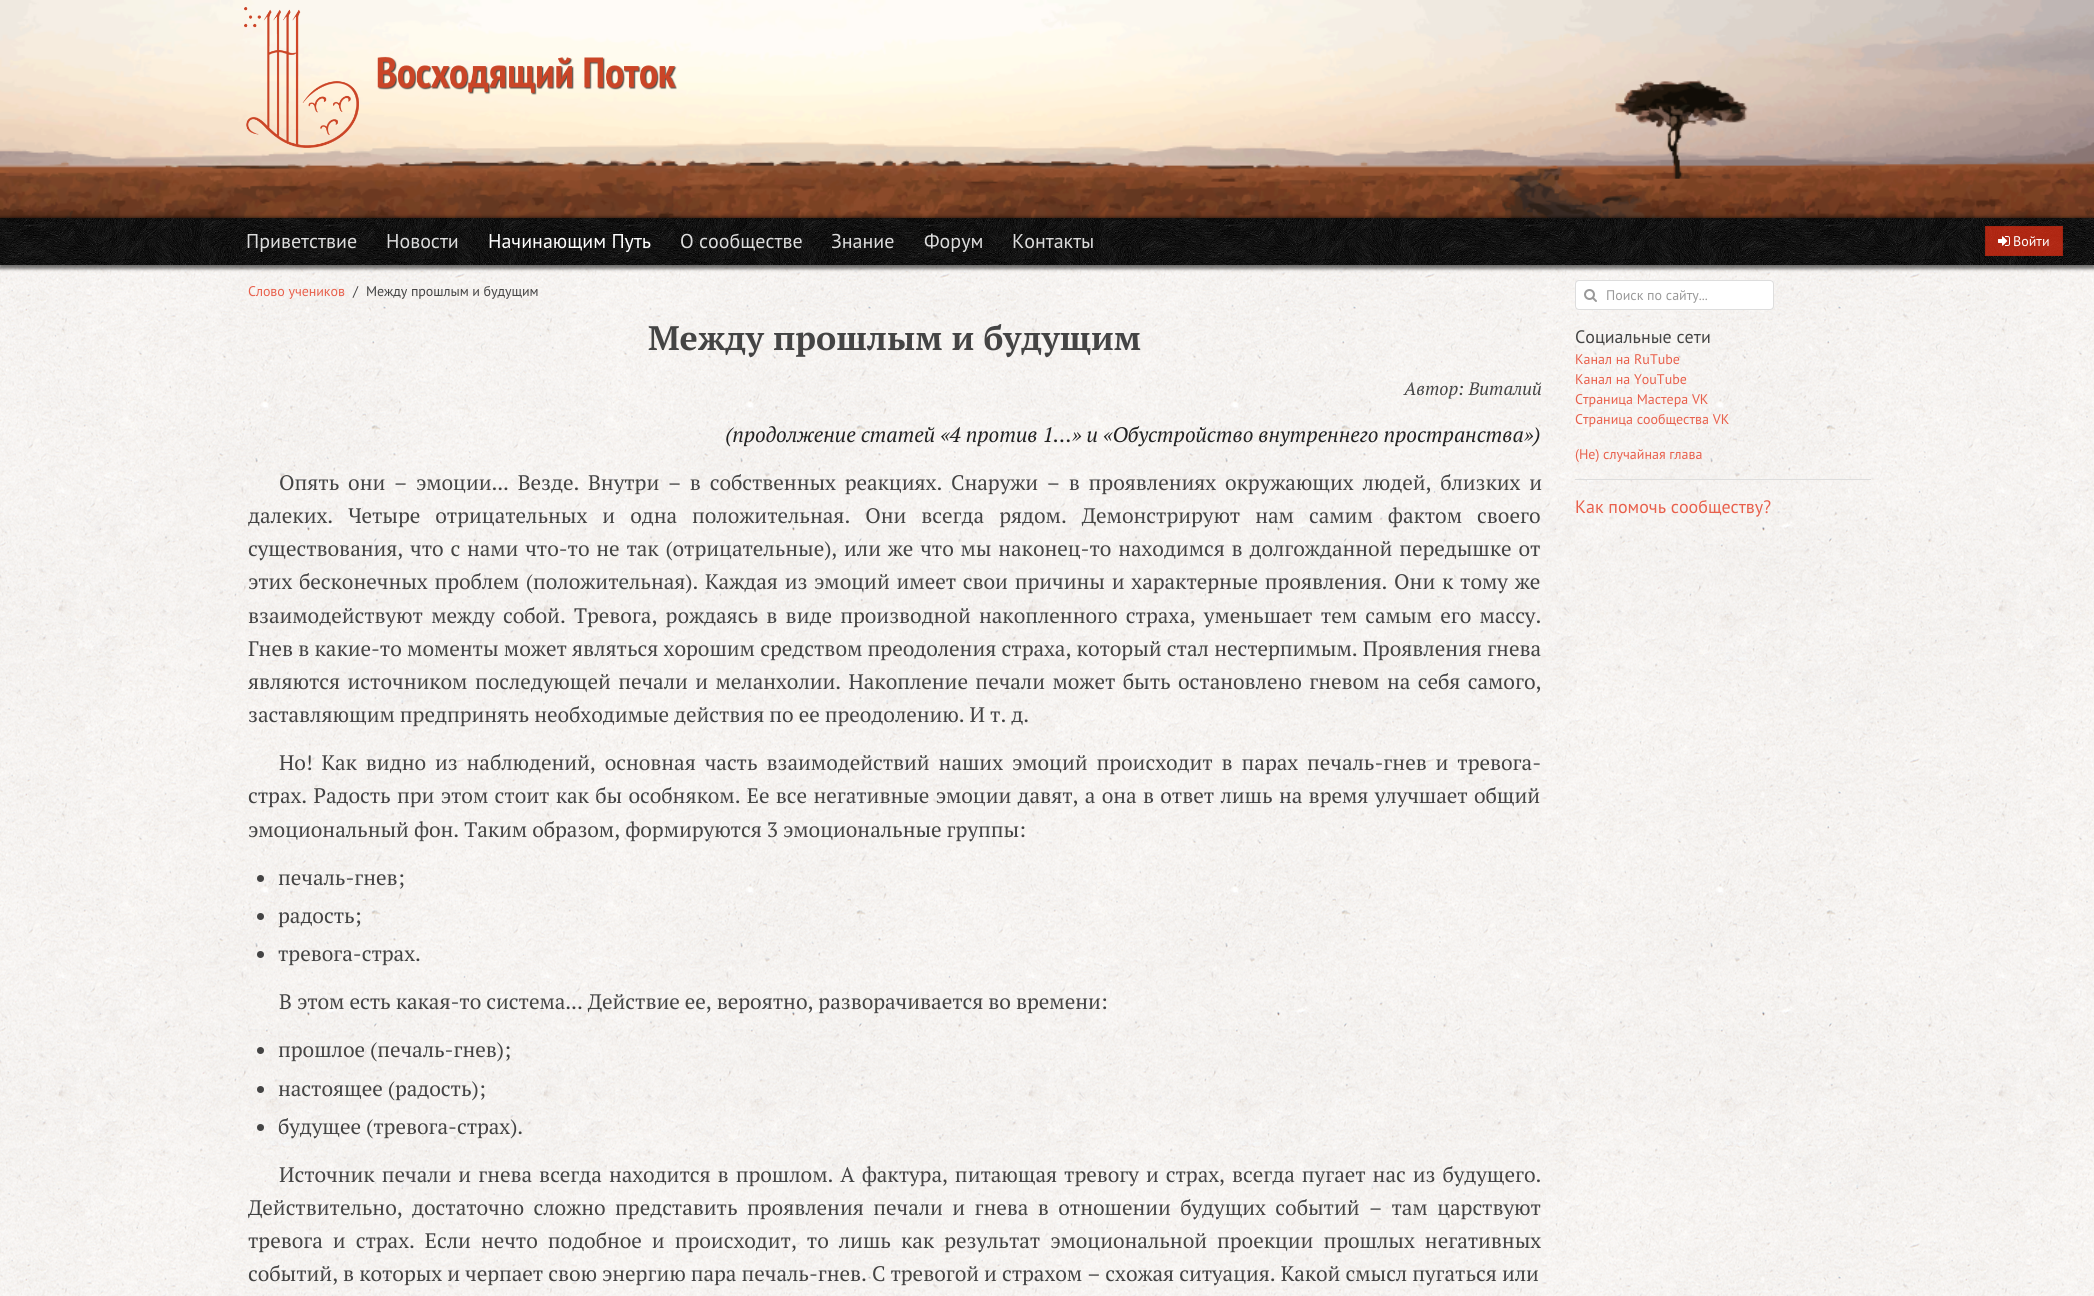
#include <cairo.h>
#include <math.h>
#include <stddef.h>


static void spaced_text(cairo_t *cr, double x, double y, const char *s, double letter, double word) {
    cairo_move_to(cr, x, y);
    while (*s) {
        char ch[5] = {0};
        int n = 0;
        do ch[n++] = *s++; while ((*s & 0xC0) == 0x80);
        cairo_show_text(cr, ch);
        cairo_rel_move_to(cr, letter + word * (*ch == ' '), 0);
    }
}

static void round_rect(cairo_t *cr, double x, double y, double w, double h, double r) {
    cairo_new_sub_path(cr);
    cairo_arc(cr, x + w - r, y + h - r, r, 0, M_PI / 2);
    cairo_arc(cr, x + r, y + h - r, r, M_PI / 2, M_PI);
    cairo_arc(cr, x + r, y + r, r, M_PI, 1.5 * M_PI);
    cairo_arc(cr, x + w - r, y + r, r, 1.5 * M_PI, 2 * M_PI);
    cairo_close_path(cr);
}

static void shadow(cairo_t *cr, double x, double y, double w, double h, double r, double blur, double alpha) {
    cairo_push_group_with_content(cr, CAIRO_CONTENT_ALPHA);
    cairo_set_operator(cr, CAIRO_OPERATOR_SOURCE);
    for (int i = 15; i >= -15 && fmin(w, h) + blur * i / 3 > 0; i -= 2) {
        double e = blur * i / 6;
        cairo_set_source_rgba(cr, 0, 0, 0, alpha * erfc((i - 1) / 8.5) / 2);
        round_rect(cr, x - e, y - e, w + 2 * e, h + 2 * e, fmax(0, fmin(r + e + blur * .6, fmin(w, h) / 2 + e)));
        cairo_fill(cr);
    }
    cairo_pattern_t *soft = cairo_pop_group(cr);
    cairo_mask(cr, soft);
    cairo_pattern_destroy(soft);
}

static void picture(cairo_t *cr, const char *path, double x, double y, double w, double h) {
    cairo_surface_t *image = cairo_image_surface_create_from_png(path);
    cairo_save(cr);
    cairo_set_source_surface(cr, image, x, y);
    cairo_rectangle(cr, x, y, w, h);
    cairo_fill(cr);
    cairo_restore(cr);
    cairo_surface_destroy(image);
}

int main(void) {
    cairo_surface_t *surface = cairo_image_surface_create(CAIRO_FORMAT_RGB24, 2094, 1296);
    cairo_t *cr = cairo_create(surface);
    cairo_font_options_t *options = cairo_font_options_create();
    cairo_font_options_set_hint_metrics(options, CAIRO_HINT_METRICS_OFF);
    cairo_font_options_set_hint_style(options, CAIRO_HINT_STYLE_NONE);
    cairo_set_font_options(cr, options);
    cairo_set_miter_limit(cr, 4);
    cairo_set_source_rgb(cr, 1, 1, 1);
    cairo_paint(cr);
    picture(cr, "img1.png", 0, 265, 2094, 1031);
    picture(cr, "img2.png", 0, 0, 2094, 218);
    picture(cr, "img3.png", 244, 7, 433, 141);
    cairo_set_source_rgb(cr, 0, 0, 0);
    shadow(cr, 0, 217, 2094, 47, 0, 1.5, 0.5);
    shadow(cr, -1, 220, 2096, 49, 0, 1.5, 0.5);
    picture(cr, "img4.png", 0, 218, 2094, 47);
    cairo_select_font_face(cr, "PT Sans", CAIRO_FONT_SLANT_NORMAL, CAIRO_FONT_WEIGHT_NORMAL);
    cairo_set_font_size(cr, 20);
    cairo_set_source_rgb(cr, 0.867, 0.867, 0.867);
    cairo_move_to(cr, 246, 248);
    cairo_show_text(cr, "Приветствие");
    cairo_move_to(cr, 386, 248);
    cairo_show_text(cr, "Новости");
    cairo_set_source_rgb(cr, 1, 1, 1);
    cairo_move_to(cr, 488, 248);
    cairo_show_text(cr, "Начинающим Путь");
    cairo_set_source_rgb(cr, 0.867, 0.867, 0.867);
    cairo_move_to(cr, 680, 248);
    cairo_show_text(cr, "О сообществе");
    cairo_move_to(cr, 831, 248);
    cairo_show_text(cr, "Знание");
    cairo_move_to(cr, 924, 248);
    cairo_show_text(cr, "Форум");
    cairo_move_to(cr, 1012, 248);
    cairo_show_text(cr, "Контакты");
    cairo_set_source_rgba(cr, 0.894, 0.184, 0.082, 0.75);
    cairo_rectangle(cr, 1985, 226, 78, 30);
    cairo_fill(cr);
    cairo_set_source_rgba(cr, 0, 0, 0, 0.06);
    cairo_new_path(cr);
    cairo_move_to(cr, 1985, 226);
    cairo_line_to(cr, 2063, 226);
    cairo_line_to(cr, 2062, 227);
    cairo_line_to(cr, 1986, 227);
    cairo_close_path(cr);
    cairo_fill(cr);
    cairo_set_source_rgba(cr, 0, 0, 0, 0.1);
    cairo_new_path(cr);
    cairo_move_to(cr, 2063, 226);
    cairo_line_to(cr, 2063, 256);
    cairo_line_to(cr, 2062, 255);
    cairo_line_to(cr, 2062, 227);
    cairo_close_path(cr);
    cairo_fill(cr);
    cairo_set_source_rgba(cr, 0, 0, 0, 0.06);
    cairo_new_path(cr);
    cairo_move_to(cr, 2063, 256);
    cairo_line_to(cr, 1985, 256);
    cairo_line_to(cr, 1986, 255);
    cairo_line_to(cr, 2062, 255);
    cairo_close_path(cr);
    cairo_fill(cr);
    cairo_set_source_rgba(cr, 0, 0, 0, 0.1);
    cairo_new_path(cr);
    cairo_move_to(cr, 1985, 256);
    cairo_line_to(cr, 1985, 226);
    cairo_line_to(cr, 1986, 227);
    cairo_line_to(cr, 1986, 255);
    cairo_close_path(cr);
    cairo_fill(cr);
    picture(cr, "img5.png", 1998, 236, 12, 10);
    cairo_set_font_size(cr, 14);
    cairo_set_source_rgb(cr, 1, 1, 1);
    cairo_move_to(cr, 2013, 246);
    cairo_show_text(cr, "Войти");
    cairo_set_source_rgb(cr, 0.91, 0.376, 0.298);
    spaced_text(cr, 248, 296, "Слово учеников", -0.06, 0);
    cairo_set_source_rgb(cr, 0.267, 0.267, 0.267);
    spaced_text(cr, 353, 296, "/", -0.06, 0);
    spaced_text(cr, 366, 296, "Между прошлым и будущим", -0.06, 0);
    cairo_select_font_face(cr, "PT Serif", CAIRO_FONT_SLANT_NORMAL, CAIRO_FONT_WEIGHT_BOLD);
    cairo_set_font_size(cr, 34);
    cairo_move_to(cr, 648, 350);
    cairo_show_text(cr, "Между прошлым и будущим");
    cairo_select_font_face(cr, "PT Serif", CAIRO_FONT_SLANT_ITALIC, CAIRO_FONT_WEIGHT_NORMAL);
    cairo_set_font_size(cr, 18);
    cairo_move_to(cr, 1404, 395);
    cairo_show_text(cr, "Автор: Виталий");
    cairo_set_font_size(cr, 21);
    cairo_set_source_rgb(cr, 0.133, 0.133, 0.133);
    spaced_text(cr, 725, 442, "(продолжение статей «4 против 1…» и «Обустройство внутреннего пространства»)", -0.06, 0);
    cairo_select_font_face(cr, "PT Serif", CAIRO_FONT_SLANT_NORMAL, CAIRO_FONT_WEIGHT_NORMAL);
    cairo_set_source_rgb(cr, 0.267, 0.267, 0.267);
    spaced_text(cr, 279, 490, "Опять они – эмоции... Везде. Внутри – в собственных реакциях. Снаружи – в проявлениях окружающих людей, близких и", -0.06, 3.75);
    spaced_text(cr, 248, 523, "далеких. Четыре отрицательных и одна положительная. Они всегда рядом. Демонстрируют нам самим фактом своего", -0.06, 10);
    spaced_text(cr, 248, 556, "существования, что с нами что-то не так (отрицательные), или же что мы наконец-то находимся в долгожданной передышке от", -0.06, 1.75);
    spaced_text(cr, 248, 589, "этих бесконечных проблем (положительная). Каждая из эмоций имеет свои причины и характерные проявления. Они к тому же", -0.06, 1.75);
    spaced_text(cr, 248, 623, "взаимодействуют между собой. Тревога, рождаясь в виде производной накопленного страха, уменьшает тем самым его массу.", -0.06, 3.25);
    spaced_text(cr, 248, 656, "Гнев в какие-то моменты может являться хорошим средством преодоления страха, который стал нестерпимым. Проявления гнева", -0.06, 0.25);
    spaced_text(cr, 248, 689, "являются источником последующей печали и меланхолии. Накопление печали может быть остановлено гневом на себя самого,", -0.06, 2.4);
    spaced_text(cr, 248, 722, "заставляющим предпринять необходимые действия по ее преодолению. И т. д.", -0.06, 0);
    spaced_text(cr, 279, 770, "Но! Как видно из наблюдений, основная часть взаимодействий наших эмоций происходит в парах печаль-гнев и тревога-", -0.06, 3.9);
    spaced_text(cr, 248, 803, "страх. Радость при этом стоит как бы особняком. Ее все негативные эмоции давят, а она в ответ лишь на время улучшает общий", -0.06, 1.3);
    spaced_text(cr, 248, 837, "эмоциональный фон. Таким образом, формируются 3 эмоциональные группы:", -0.06, 0);
    cairo_new_path(cr);
    cairo_arc(cr, 260.5, 878.5, 3.5, 0, 2 * M_PI);
    cairo_fill(cr);
    spaced_text(cr, 278, 885, "печаль-гнев;", -0.06, 0);
    cairo_new_path(cr);
    cairo_arc(cr, 260.5, 916.5, 3.5, 0, 2 * M_PI);
    cairo_fill(cr);
    spaced_text(cr, 278, 923, "радость;", -0.06, 0);
    cairo_new_path(cr);
    cairo_arc(cr, 260.5, 954.5, 3.5, 0, 2 * M_PI);
    cairo_fill(cr);
    spaced_text(cr, 278, 961, "тревога-страх.", -0.06, 0);
    spaced_text(cr, 279, 1009, "В этом есть какая-то система... Действие ее, вероятно, разворачивается во времени:", -0.06, 0);
    cairo_new_path(cr);
    cairo_arc(cr, 260.5, 1050.5, 3.5, 0, 2 * M_PI);
    cairo_fill(cr);
    spaced_text(cr, 278, 1057, "прошлое (печаль-гнев);", -0.06, 0);
    cairo_new_path(cr);
    cairo_arc(cr, 260.5, 1089.5, 3.5, 0, 2 * M_PI);
    cairo_fill(cr);
    spaced_text(cr, 278, 1096, "настоящее (радость);", -0.06, 0);
    cairo_new_path(cr);
    cairo_arc(cr, 260.5, 1127.5, 3.5, 0, 2 * M_PI);
    cairo_fill(cr);
    spaced_text(cr, 278, 1134, "будущее (тревога-страх).", -0.06, 0);
    spaced_text(cr, 279, 1182, "Источник печали и гнева всегда находится в прошлом. А фактура, питающая тревогу и страх, всегда пугает нас из будущего.", -0.06, 2);
    spaced_text(cr, 248, 1215, "Действительно, достаточно сложно представить проявления печали и гнева в отношении будущих событий – там царствуют", -0.06, 4.4);
    spaced_text(cr, 248, 1248, "тревога и страх. Если нечто подобное и происходит, то лишь как результат эмоциональной проекции прошлых негативных", -0.06, 5);
    spaced_text(cr, 248, 1281, "событий, в которых и черпает свою энергию пара печаль-гнев. С тревогой и страхом – схожая ситуация. Какой смысл пугаться или", -0.06, 0);
    cairo_set_source_rgb(cr, 1, 1, 1);
    round_rect(cr, 1575.5, 280.5, 198, 29, 3.5);
    cairo_fill_preserve(cr);
    cairo_set_source_rgb(cr, 0.867, 0.867, 0.867);
    cairo_set_line_width(cr, 1);
    cairo_stroke(cr);
    picture(cr, "img6.png", 1584, 289, 13, 13);
    cairo_select_font_face(cr, "PT Sans", CAIRO_FONT_SLANT_NORMAL, CAIRO_FONT_WEIGHT_NORMAL);
    cairo_set_font_size(cr, 14);
    cairo_set_source_rgb(cr, 0.6, 0.6, 0.6);
    cairo_move_to(cr, 1606, 300);
    cairo_show_text(cr, "Поиск по сайту...");
    cairo_set_font_size(cr, 18);
    cairo_set_source_rgb(cr, 0.267, 0.267, 0.267);
    cairo_move_to(cr, 1575, 343);
    cairo_show_text(cr, "Социальные сети");
    cairo_set_font_size(cr, 14);
    cairo_set_source_rgb(cr, 0.91, 0.376, 0.298);
    cairo_move_to(cr, 1575, 364);
    cairo_show_text(cr, "Канал на RuTube");
    cairo_move_to(cr, 1575, 384);
    cairo_show_text(cr, "Канал на YouTube");
    cairo_move_to(cr, 1575, 404);
    cairo_show_text(cr, "Страница Мастера VK");
    cairo_move_to(cr, 1575, 424);
    cairo_show_text(cr, "Страница сообщества VK");
    cairo_move_to(cr, 1575, 459);
    cairo_show_text(cr, "(Не) случайная глава");
    cairo_set_source_rgb(cr, 0.867, 0.867, 0.867);
    cairo_rectangle(cr, 1575, 479, 296, 1);
    cairo_fill(cr);
    cairo_set_font_size(cr, 18);
    cairo_set_source_rgb(cr, 0.91, 0.376, 0.298);
    cairo_move_to(cr, 1575, 513);
    cairo_show_text(cr, "Как помочь сообществу?");
    cairo_surface_write_to_png(surface, "page.png");
    cairo_font_options_destroy(options);
    cairo_destroy(cr);
    cairo_surface_destroy(surface);
    return 0;
}
